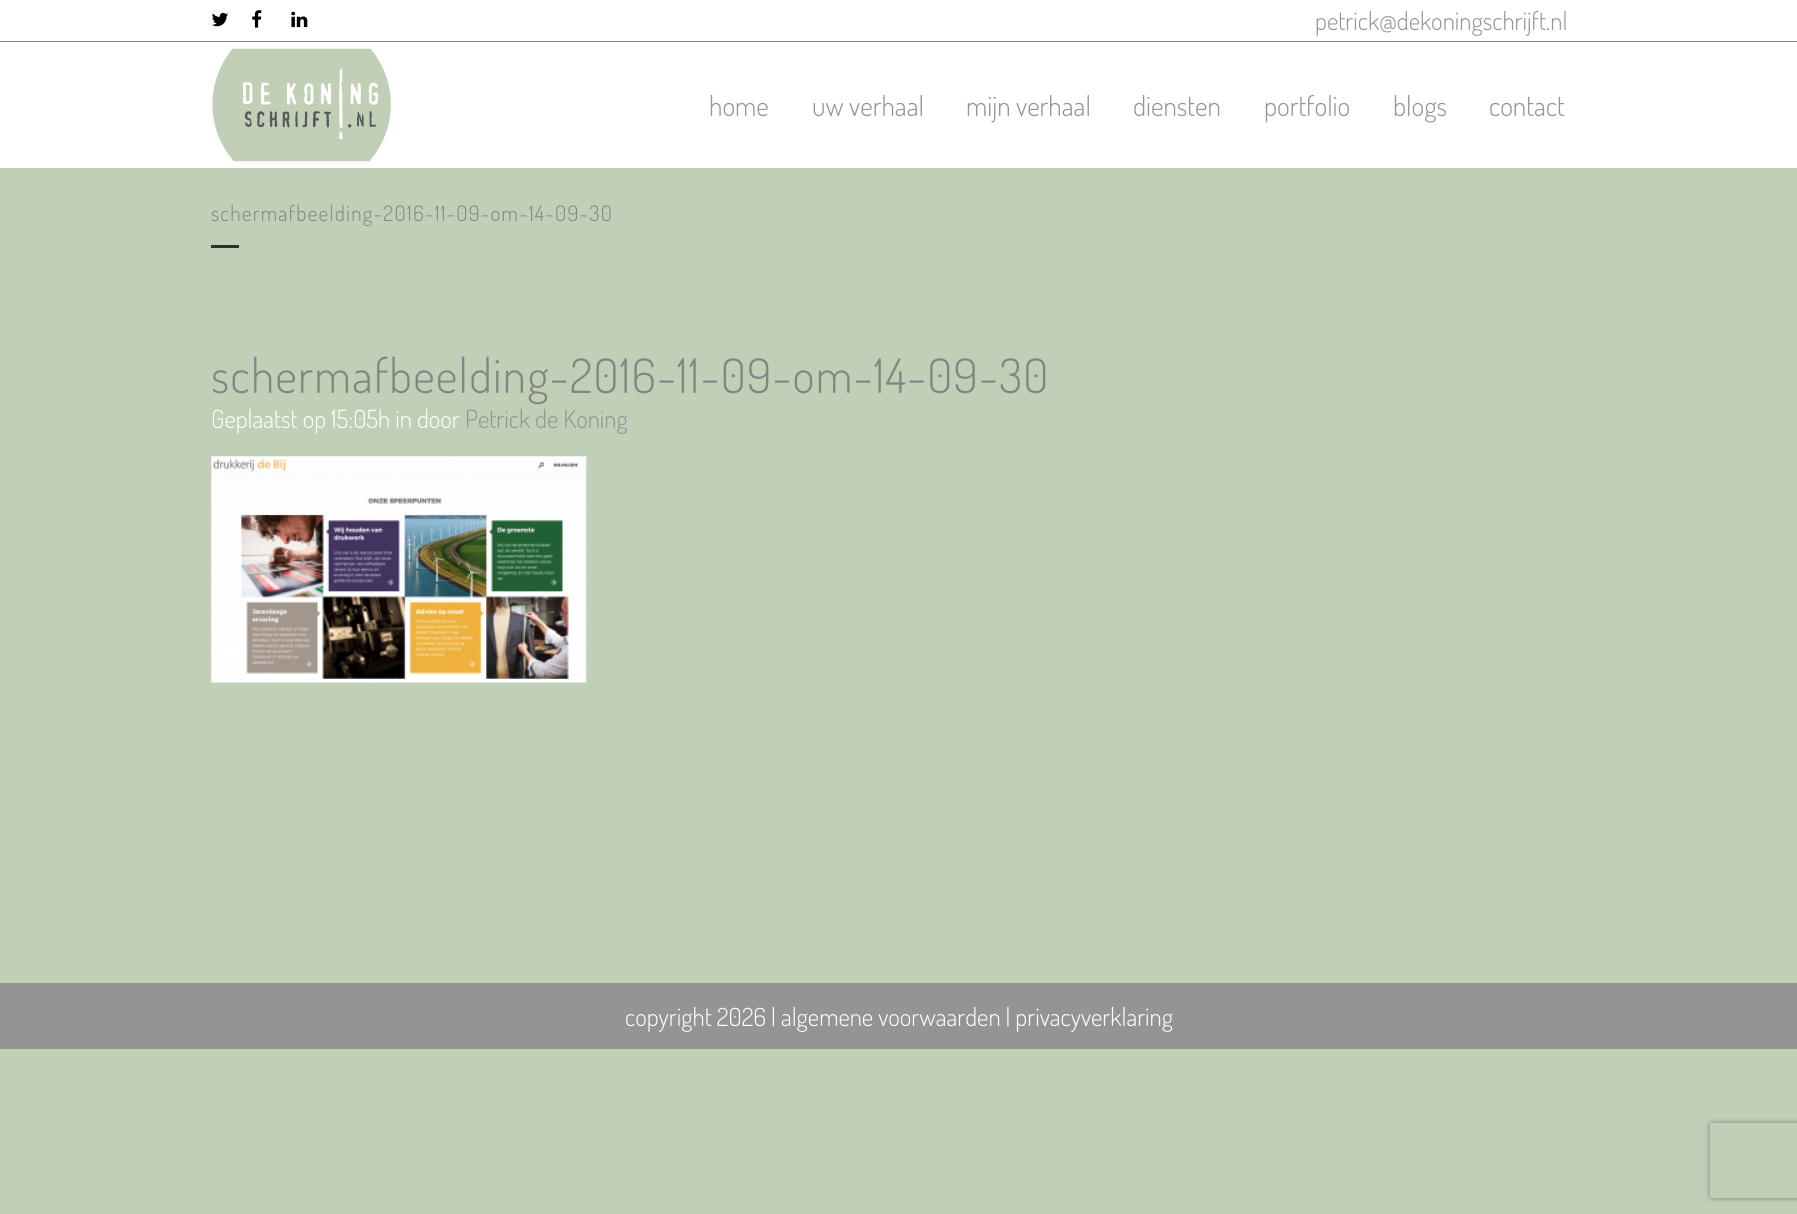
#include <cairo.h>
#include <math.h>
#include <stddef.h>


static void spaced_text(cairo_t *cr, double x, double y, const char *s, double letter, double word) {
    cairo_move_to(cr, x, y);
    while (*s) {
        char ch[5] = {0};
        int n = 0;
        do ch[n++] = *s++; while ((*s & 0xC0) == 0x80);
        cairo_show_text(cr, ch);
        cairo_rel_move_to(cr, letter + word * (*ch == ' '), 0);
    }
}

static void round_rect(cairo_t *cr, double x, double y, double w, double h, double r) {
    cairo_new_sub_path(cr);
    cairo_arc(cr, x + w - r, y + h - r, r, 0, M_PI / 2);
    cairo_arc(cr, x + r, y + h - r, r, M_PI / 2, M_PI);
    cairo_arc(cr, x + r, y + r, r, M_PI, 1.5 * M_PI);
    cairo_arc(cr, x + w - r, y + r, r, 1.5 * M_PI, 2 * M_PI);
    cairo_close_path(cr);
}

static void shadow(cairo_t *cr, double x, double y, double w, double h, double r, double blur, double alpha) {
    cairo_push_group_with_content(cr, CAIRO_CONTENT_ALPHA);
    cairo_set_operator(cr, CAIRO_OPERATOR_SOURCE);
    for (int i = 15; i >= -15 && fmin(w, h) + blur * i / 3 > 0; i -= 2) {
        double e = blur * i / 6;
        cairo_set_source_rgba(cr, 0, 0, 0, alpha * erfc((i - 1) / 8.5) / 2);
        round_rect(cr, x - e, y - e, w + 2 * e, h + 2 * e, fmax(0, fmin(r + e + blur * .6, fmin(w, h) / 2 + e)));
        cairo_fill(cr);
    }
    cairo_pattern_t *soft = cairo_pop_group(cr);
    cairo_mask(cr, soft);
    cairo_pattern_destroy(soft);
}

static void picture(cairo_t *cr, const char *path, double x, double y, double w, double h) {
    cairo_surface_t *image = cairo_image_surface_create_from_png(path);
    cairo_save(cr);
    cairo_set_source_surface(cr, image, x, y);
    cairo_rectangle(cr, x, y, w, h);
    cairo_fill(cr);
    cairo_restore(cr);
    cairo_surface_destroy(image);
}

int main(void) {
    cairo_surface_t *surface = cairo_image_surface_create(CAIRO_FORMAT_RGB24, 1797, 1214);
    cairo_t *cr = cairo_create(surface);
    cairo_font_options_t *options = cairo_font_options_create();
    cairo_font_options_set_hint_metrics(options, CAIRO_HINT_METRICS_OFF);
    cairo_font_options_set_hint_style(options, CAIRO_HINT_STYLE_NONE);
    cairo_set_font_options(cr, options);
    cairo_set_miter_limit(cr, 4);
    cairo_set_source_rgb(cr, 0.749, 0.816, 0.718);
    cairo_paint(cr);
    cairo_set_source_rgb(cr, 1, 1, 1);
    cairo_rectangle(cr, 0, 0, 1797, 168);
    cairo_fill(cr);
    cairo_set_source_rgb(cr, 0.518, 0.518, 0.518);
    cairo_rectangle(cr, 0, 41, 1797, 1);
    cairo_fill(cr);
    picture(cr, "img1.png", 211, 12, 17, 15);
    picture(cr, "img2.png", 252, 10, 10, 18);
    picture(cr, "img3.png", 291, 11, 17, 17);
    cairo_select_font_face(cr, "Dosis Light", CAIRO_FONT_SLANT_NORMAL, CAIRO_FONT_WEIGHT_NORMAL);
    cairo_set_font_size(cr, 25);
    cairo_set_source_rgb(cr, 0.58, 0.58, 0.58);
    cairo_move_to(cr, 1315, 30);
    cairo_show_text(cr, "petrick@dekoningschrijft.nl");
    picture(cr, "img4.png", 212, 48, 179, 114);
    cairo_set_font_size(cr, 27.5);
    cairo_move_to(cr, 709, 116);
    cairo_show_text(cr, "home");
    cairo_move_to(cr, 812, 116);
    cairo_show_text(cr, "uw verhaal");
    cairo_move_to(cr, 966, 116);
    cairo_show_text(cr, "mijn verhaal");
    cairo_move_to(cr, 1133, 116);
    cairo_show_text(cr, "diensten");
    cairo_move_to(cr, 1264, 116);
    cairo_show_text(cr, "portfolio");
    cairo_move_to(cr, 1393, 116);
    cairo_show_text(cr, "blogs");
    cairo_move_to(cr, 1489, 116);
    cairo_show_text(cr, "contact");
    cairo_set_font_size(cr, 21.25);
    cairo_set_source_rgb(cr, 0.518, 0.518, 0.518);
    spaced_text(cr, 211, 221, "schermafbeelding-2016-11-09-om-14-09-30", 1.25, 0);
    cairo_set_source_rgb(cr, 0.188, 0.188, 0.188);
    cairo_rectangle(cr, 211, 245, 28, 3);
    cairo_fill(cr);
    cairo_set_font_size(cr, 47.5);
    cairo_set_source_rgb(cr, 0.518, 0.518, 0.518);
    spaced_text(cr, 211, 393, "schermafbeelding-2016-11-09-om-14-09-30", 1.25, 0);
    cairo_set_font_size(cr, 25);
    cairo_set_source_rgb(cr, 1, 1, 1);
    cairo_move_to(cr, 211, 428);
    cairo_show_text(cr, "Geplaatst op 15:05h in door");
    cairo_set_source_rgb(cr, 0.58, 0.58, 0.58);
    cairo_move_to(cr, 465, 428);
    cairo_show_text(cr, "Petrick de Koning");
    picture(cr, "img5.png", 211, 456, 376, 227);
    cairo_rectangle(cr, 0, 983, 1797, 66);
    cairo_fill(cr);
    cairo_set_source_rgb(cr, 1, 1, 1);
    cairo_move_to(cr, 625, 1026);
    cairo_show_text(cr, "copyright 2026 | algemene voorwaarden | privacyverklaring");
    cairo_save(cr);
    cairo_set_fill_rule(cr, CAIRO_FILL_RULE_EVEN_ODD);
    cairo_new_path(cr);
    cairo_move_to(cr, 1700, 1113);
    cairo_line_to(cr, 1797, 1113);
    cairo_line_to(cr, 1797, 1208);
    cairo_line_to(cr, 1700, 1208);
    cairo_close_path(cr);
    cairo_move_to(cr, 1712.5, 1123);
    cairo_line_to(cr, 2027.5, 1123);
    cairo_curve_to(cr, 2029, 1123, 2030, 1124, 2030, 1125.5);
    cairo_line_to(cr, 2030, 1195.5);
    cairo_curve_to(cr, 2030, 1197, 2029, 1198, 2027.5, 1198);
    cairo_line_to(cr, 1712.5, 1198);
    cairo_curve_to(cr, 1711, 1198, 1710, 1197, 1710, 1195.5);
    cairo_line_to(cr, 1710, 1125.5);
    cairo_curve_to(cr, 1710, 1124, 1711, 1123, 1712.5, 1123);
    cairo_close_path(cr);
    cairo_clip(cr);
    cairo_set_source_rgb(cr, 0.502, 0.502, 0.502);
    shadow(cr, 1710, 1123, 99, 75, 2.5, 3, 1);
    cairo_restore(cr);
    cairo_surface_write_to_png(surface, "page.png");
    cairo_font_options_destroy(options);
    cairo_destroy(cr);
    cairo_surface_destroy(surface);
    return 0;
}
